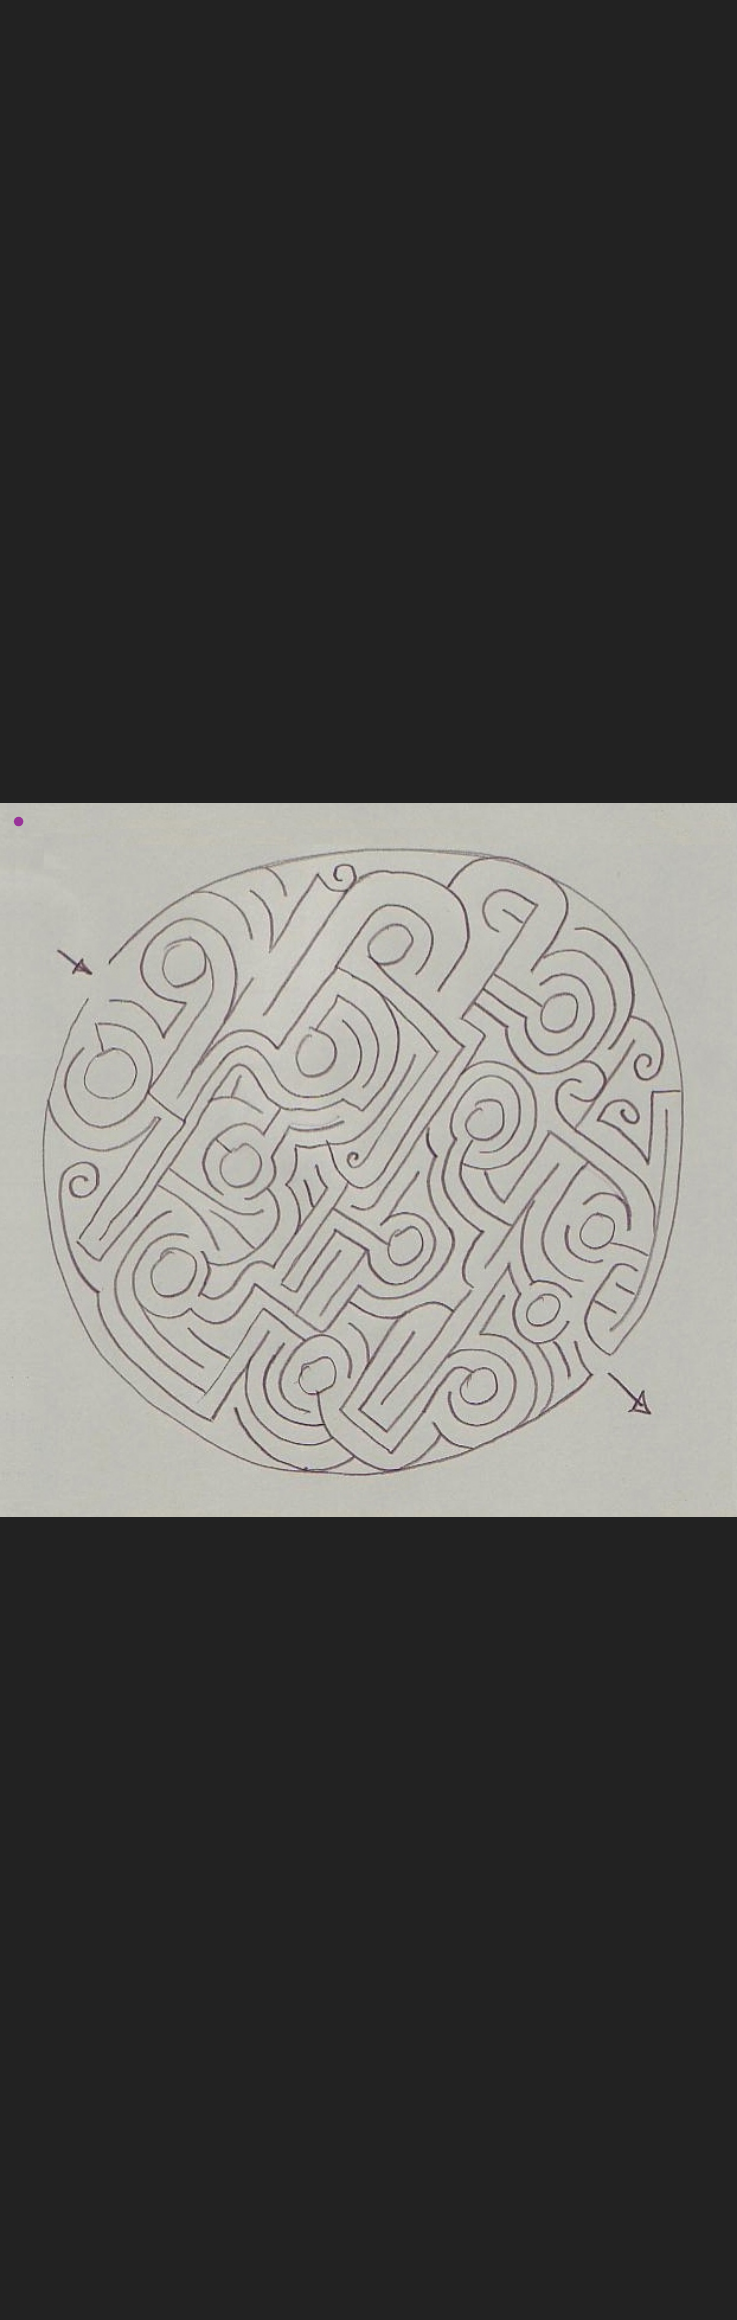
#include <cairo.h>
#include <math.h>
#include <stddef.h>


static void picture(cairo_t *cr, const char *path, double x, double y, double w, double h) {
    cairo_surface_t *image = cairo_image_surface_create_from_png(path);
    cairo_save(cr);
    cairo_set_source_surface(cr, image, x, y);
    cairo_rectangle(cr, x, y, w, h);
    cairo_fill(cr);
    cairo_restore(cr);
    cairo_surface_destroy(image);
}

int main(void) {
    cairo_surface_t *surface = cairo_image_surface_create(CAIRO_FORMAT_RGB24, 737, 2320);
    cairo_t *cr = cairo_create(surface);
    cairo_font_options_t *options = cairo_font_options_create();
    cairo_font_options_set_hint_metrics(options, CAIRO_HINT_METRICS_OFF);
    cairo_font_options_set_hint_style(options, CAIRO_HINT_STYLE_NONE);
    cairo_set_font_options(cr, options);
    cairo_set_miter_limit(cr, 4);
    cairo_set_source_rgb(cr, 0.133, 0.133, 0.133);
    cairo_paint(cr);
    picture(cr, "img1.png", 0, 803, 737, 714);
    cairo_surface_write_to_png(surface, "page.png");
    cairo_font_options_destroy(options);
    cairo_destroy(cr);
    cairo_surface_destroy(surface);
    return 0;
}
